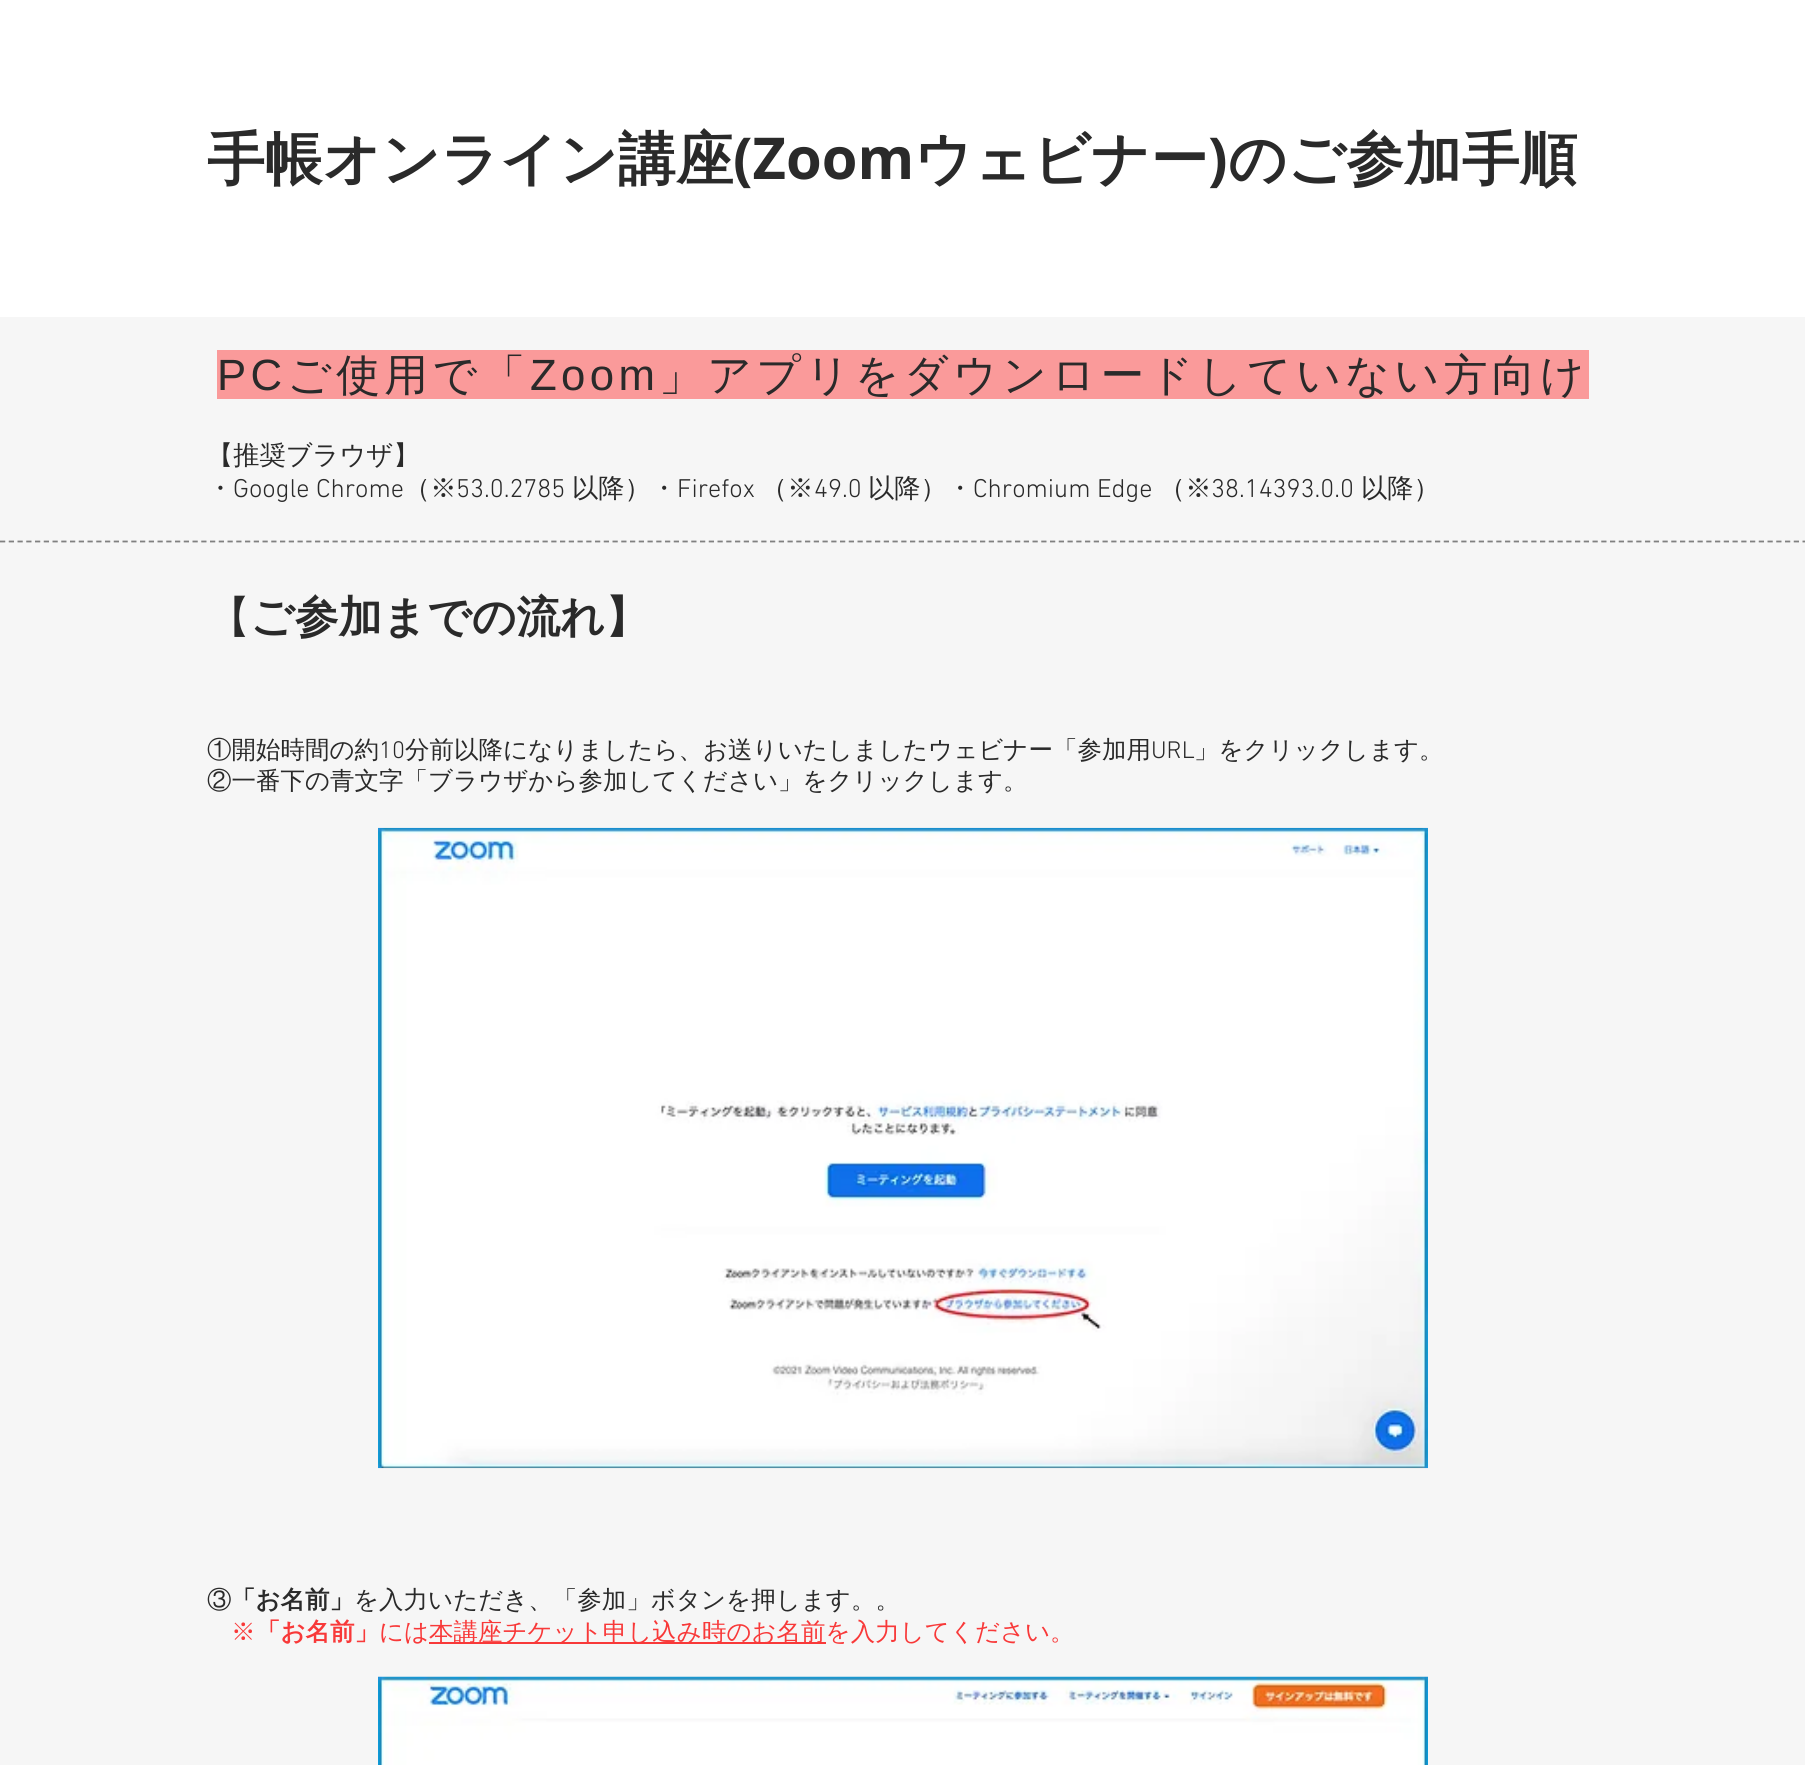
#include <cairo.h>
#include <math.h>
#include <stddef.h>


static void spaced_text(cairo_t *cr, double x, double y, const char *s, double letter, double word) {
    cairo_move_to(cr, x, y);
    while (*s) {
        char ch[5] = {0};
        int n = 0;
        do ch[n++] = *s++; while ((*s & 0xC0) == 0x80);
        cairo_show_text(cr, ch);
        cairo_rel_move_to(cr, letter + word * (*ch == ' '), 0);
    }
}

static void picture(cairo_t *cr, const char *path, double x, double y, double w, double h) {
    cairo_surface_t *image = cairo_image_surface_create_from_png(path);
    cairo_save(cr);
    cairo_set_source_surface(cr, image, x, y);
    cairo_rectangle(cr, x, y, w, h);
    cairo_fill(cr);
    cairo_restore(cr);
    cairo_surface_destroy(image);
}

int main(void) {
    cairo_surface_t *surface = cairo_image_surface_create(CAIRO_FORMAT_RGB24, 1805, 1765);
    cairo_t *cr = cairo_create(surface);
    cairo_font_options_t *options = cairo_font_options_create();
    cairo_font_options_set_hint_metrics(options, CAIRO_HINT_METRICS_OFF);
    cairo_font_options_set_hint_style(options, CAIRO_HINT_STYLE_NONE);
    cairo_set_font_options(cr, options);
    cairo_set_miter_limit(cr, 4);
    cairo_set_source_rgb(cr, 1, 1, 1);
    cairo_paint(cr);
    cairo_select_font_face(cr, "WenQuanYi Zen Hei", CAIRO_FONT_SLANT_NORMAL, CAIRO_FONT_WEIGHT_BOLD);
    cairo_set_font_size(cr, 57.75);
    cairo_set_source_rgb(cr, 0.165, 0.165, 0.165);
    cairo_move_to(cr, 207, 179);
    cairo_show_text(cr, "手帳オンライン講座");
    cairo_select_font_face(cr, "Open Sans", CAIRO_FONT_SLANT_NORMAL, CAIRO_FONT_WEIGHT_BOLD);
    cairo_move_to(cr, 733, 179);
    cairo_show_text(cr, "(Zoom");
    cairo_select_font_face(cr, "WenQuanYi Zen Hei", CAIRO_FONT_SLANT_NORMAL, CAIRO_FONT_WEIGHT_BOLD);
    cairo_move_to(cr, 914, 179);
    cairo_show_text(cr, "ウェビナー");
    cairo_select_font_face(cr, "Open Sans", CAIRO_FONT_SLANT_NORMAL, CAIRO_FONT_WEIGHT_BOLD);
    cairo_move_to(cr, 1208, 179);
    cairo_show_text(cr, ")");
    cairo_select_font_face(cr, "WenQuanYi Zen Hei", CAIRO_FONT_SLANT_NORMAL, CAIRO_FONT_WEIGHT_BOLD);
    cairo_move_to(cr, 1228, 179);
    cairo_show_text(cr, "のご参加手順");
    cairo_set_source_rgb(cr, 0.961, 0.961, 0.961);
    cairo_rectangle(cr, 0, 317, 1805, 1448);
    cairo_fill(cr);
    cairo_set_source_rgb(cr, 0.98, 0.604, 0.604);
    cairo_rectangle(cr, 217, 350, 1372, 49);
    cairo_fill(cr);
    cairo_select_font_face(cr, "Liberation Sans", CAIRO_FONT_SLANT_NORMAL, CAIRO_FONT_WEIGHT_NORMAL);
    cairo_set_font_size(cr, 43.75);
    cairo_set_source_rgb(cr, 0.165, 0.165, 0.165);
    spaced_text(cr, 217, 390, "PC", 4.4, 0);
    cairo_select_font_face(cr, "WenQuanYi Zen Hei Medium", CAIRO_FONT_SLANT_NORMAL, CAIRO_FONT_WEIGHT_NORMAL);
    spaced_text(cr, 287, 390, "ご使用で「", 4.4, 0);
    cairo_select_font_face(cr, "Liberation Sans", CAIRO_FONT_SLANT_NORMAL, CAIRO_FONT_WEIGHT_NORMAL);
    spaced_text(cr, 530, 390, "Zoom", 4.4, 0);
    cairo_select_font_face(cr, "WenQuanYi Zen Hei Medium", CAIRO_FONT_SLANT_NORMAL, CAIRO_FONT_WEIGHT_NORMAL);
    spaced_text(cr, 659, 390, "」アプリをダウンロードしていない方向け", 4.4, 0);
    cairo_set_font_size(cr, 26.25);
    cairo_move_to(cr, 207, 464);
    cairo_show_text(cr, "【推奨ブラウザ】");
    cairo_move_to(cr, 207, 497);
    cairo_show_text(cr, "・");
    cairo_select_font_face(cr, "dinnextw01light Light", CAIRO_FONT_SLANT_NORMAL, CAIRO_FONT_WEIGHT_NORMAL);
    cairo_move_to(cr, 233, 497);
    cairo_show_text(cr, "Google Chrome");
    cairo_select_font_face(cr, "WenQuanYi Zen Hei Medium", CAIRO_FONT_SLANT_NORMAL, CAIRO_FONT_WEIGHT_NORMAL);
    cairo_move_to(cr, 404, 497);
    cairo_show_text(cr, "（※");
    cairo_select_font_face(cr, "dinnextw01light Light", CAIRO_FONT_SLANT_NORMAL, CAIRO_FONT_WEIGHT_NORMAL);
    cairo_move_to(cr, 456, 497);
    cairo_show_text(cr, "53.0.2785");
    cairo_select_font_face(cr, "WenQuanYi Zen Hei Medium", CAIRO_FONT_SLANT_NORMAL, CAIRO_FONT_WEIGHT_NORMAL);
    cairo_move_to(cr, 572, 497);
    cairo_show_text(cr, "以降）・");
    cairo_select_font_face(cr, "dinnextw01light Light", CAIRO_FONT_SLANT_NORMAL, CAIRO_FONT_WEIGHT_NORMAL);
    cairo_move_to(cr, 677, 497);
    cairo_show_text(cr, "Firefox");
    cairo_select_font_face(cr, "WenQuanYi Zen Hei Medium", CAIRO_FONT_SLANT_NORMAL, CAIRO_FONT_WEIGHT_NORMAL);
    cairo_move_to(cr, 761, 497);
    cairo_show_text(cr, "（※");
    cairo_select_font_face(cr, "dinnextw01light Light", CAIRO_FONT_SLANT_NORMAL, CAIRO_FONT_WEIGHT_NORMAL);
    cairo_move_to(cr, 814, 497);
    cairo_show_text(cr, "49.0");
    cairo_select_font_face(cr, "WenQuanYi Zen Hei Medium", CAIRO_FONT_SLANT_NORMAL, CAIRO_FONT_WEIGHT_NORMAL);
    cairo_move_to(cr, 868, 497);
    cairo_show_text(cr, "以降）・");
    cairo_select_font_face(cr, "dinnextw01light Light", CAIRO_FONT_SLANT_NORMAL, CAIRO_FONT_WEIGHT_NORMAL);
    cairo_move_to(cr, 973, 497);
    cairo_show_text(cr, "Chromium Edge");
    cairo_select_font_face(cr, "WenQuanYi Zen Hei Medium", CAIRO_FONT_SLANT_NORMAL, CAIRO_FONT_WEIGHT_NORMAL);
    cairo_move_to(cr, 1159, 497);
    cairo_show_text(cr, "（※");
    cairo_select_font_face(cr, "dinnextw01light Light", CAIRO_FONT_SLANT_NORMAL, CAIRO_FONT_WEIGHT_NORMAL);
    cairo_move_to(cr, 1211, 497);
    cairo_show_text(cr, "38.14393.0.0");
    cairo_select_font_face(cr, "WenQuanYi Zen Hei Medium", CAIRO_FONT_SLANT_NORMAL, CAIRO_FONT_WEIGHT_NORMAL);
    cairo_move_to(cr, 1361, 497);
    cairo_show_text(cr, "以降）");
    cairo_new_path(cr);
    cairo_move_to(cr, 0, 541.5);
    cairo_line_to(cr, 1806, 541.5);
    cairo_set_source_rgb(cr, 0.502, 0.502, 0.502);
    cairo_set_line_width(cr, 1.8);
    cairo_set_dash(cr, (double[]){5.25, 3.5}, 2, 0);
    cairo_stroke(cr);
    cairo_set_font_size(cr, 43.75);
    cairo_set_source_rgb(cr, 0.165, 0.165, 0.165);
    cairo_move_to(cr, 207, 632);
    cairo_show_text(cr, "【");
    cairo_select_font_face(cr, "WenQuanYi Zen Hei", CAIRO_FONT_SLANT_NORMAL, CAIRO_FONT_WEIGHT_BOLD);
    cairo_move_to(cr, 250, 632);
    cairo_show_text(cr, "ご参加までの流れ】");
    cairo_select_font_face(cr, "WenQuanYi Zen Hei Medium", CAIRO_FONT_SLANT_NORMAL, CAIRO_FONT_WEIGHT_NORMAL);
    cairo_set_font_size(cr, 24.5);
    cairo_move_to(cr, 207, 758);
    cairo_show_text(cr, "①開始時間の約");
    cairo_select_font_face(cr, "dinnextw01light Light", CAIRO_FONT_SLANT_NORMAL, CAIRO_FONT_WEIGHT_NORMAL);
    cairo_move_to(cr, 379, 758);
    cairo_show_text(cr, "10");
    cairo_select_font_face(cr, "WenQuanYi Zen Hei Medium", CAIRO_FONT_SLANT_NORMAL, CAIRO_FONT_WEIGHT_NORMAL);
    cairo_move_to(cr, 405, 758);
    cairo_show_text(cr, "分前以降になりましたら、お送りいたしましたウェビナー「参加用");
    cairo_select_font_face(cr, "dinnextw01light Light", CAIRO_FONT_SLANT_NORMAL, CAIRO_FONT_WEIGHT_NORMAL);
    cairo_move_to(cr, 1151, 758);
    cairo_show_text(cr, "URL");
    cairo_select_font_face(cr, "WenQuanYi Zen Hei Medium", CAIRO_FONT_SLANT_NORMAL, CAIRO_FONT_WEIGHT_NORMAL);
    cairo_move_to(cr, 1194, 758);
    cairo_show_text(cr, "」をクリックします。");
    cairo_move_to(cr, 207, 789);
    cairo_show_text(cr, "②一番下の青文字「ブラウザから参加してください」をクリックします。");
    picture(cr, "img1.png", 378, 827, 1050, 642);
    cairo_move_to(cr, 207, 1608);
    cairo_show_text(cr, "③");
    cairo_select_font_face(cr, "WenQuanYi Zen Hei", CAIRO_FONT_SLANT_NORMAL, CAIRO_FONT_WEIGHT_BOLD);
    cairo_move_to(cr, 231, 1608);
    cairo_show_text(cr, "「お名前」");
    cairo_select_font_face(cr, "WenQuanYi Zen Hei Medium", CAIRO_FONT_SLANT_NORMAL, CAIRO_FONT_WEIGHT_NORMAL);
    cairo_move_to(cr, 354, 1608);
    cairo_show_text(cr, "を入力いただき、「参加」ボタンを押します。。");
    cairo_set_source_rgb(cr, 0.969, 0.224, 0.224);
    cairo_move_to(cr, 231, 1640);
    cairo_show_text(cr, "※");
    cairo_select_font_face(cr, "WenQuanYi Zen Hei", CAIRO_FONT_SLANT_NORMAL, CAIRO_FONT_WEIGHT_BOLD);
    cairo_move_to(cr, 256, 1640);
    cairo_show_text(cr, "「お名前」");
    cairo_select_font_face(cr, "WenQuanYi Zen Hei Medium", CAIRO_FONT_SLANT_NORMAL, CAIRO_FONT_WEIGHT_NORMAL);
    cairo_move_to(cr, 379, 1640);
    cairo_show_text(cr, "には");
    cairo_rectangle(cr, 429, 1642, 397, 2);
    cairo_fill(cr);
    cairo_move_to(cr, 429, 1640);
    cairo_show_text(cr, "本講座チケット申し込み時のお名前を入力してください。");
    picture(cr, "img2.png", 378, 1676, 1050, 89);
    cairo_surface_write_to_png(surface, "page.png");
    cairo_font_options_destroy(options);
    cairo_destroy(cr);
    cairo_surface_destroy(surface);
    return 0;
}
